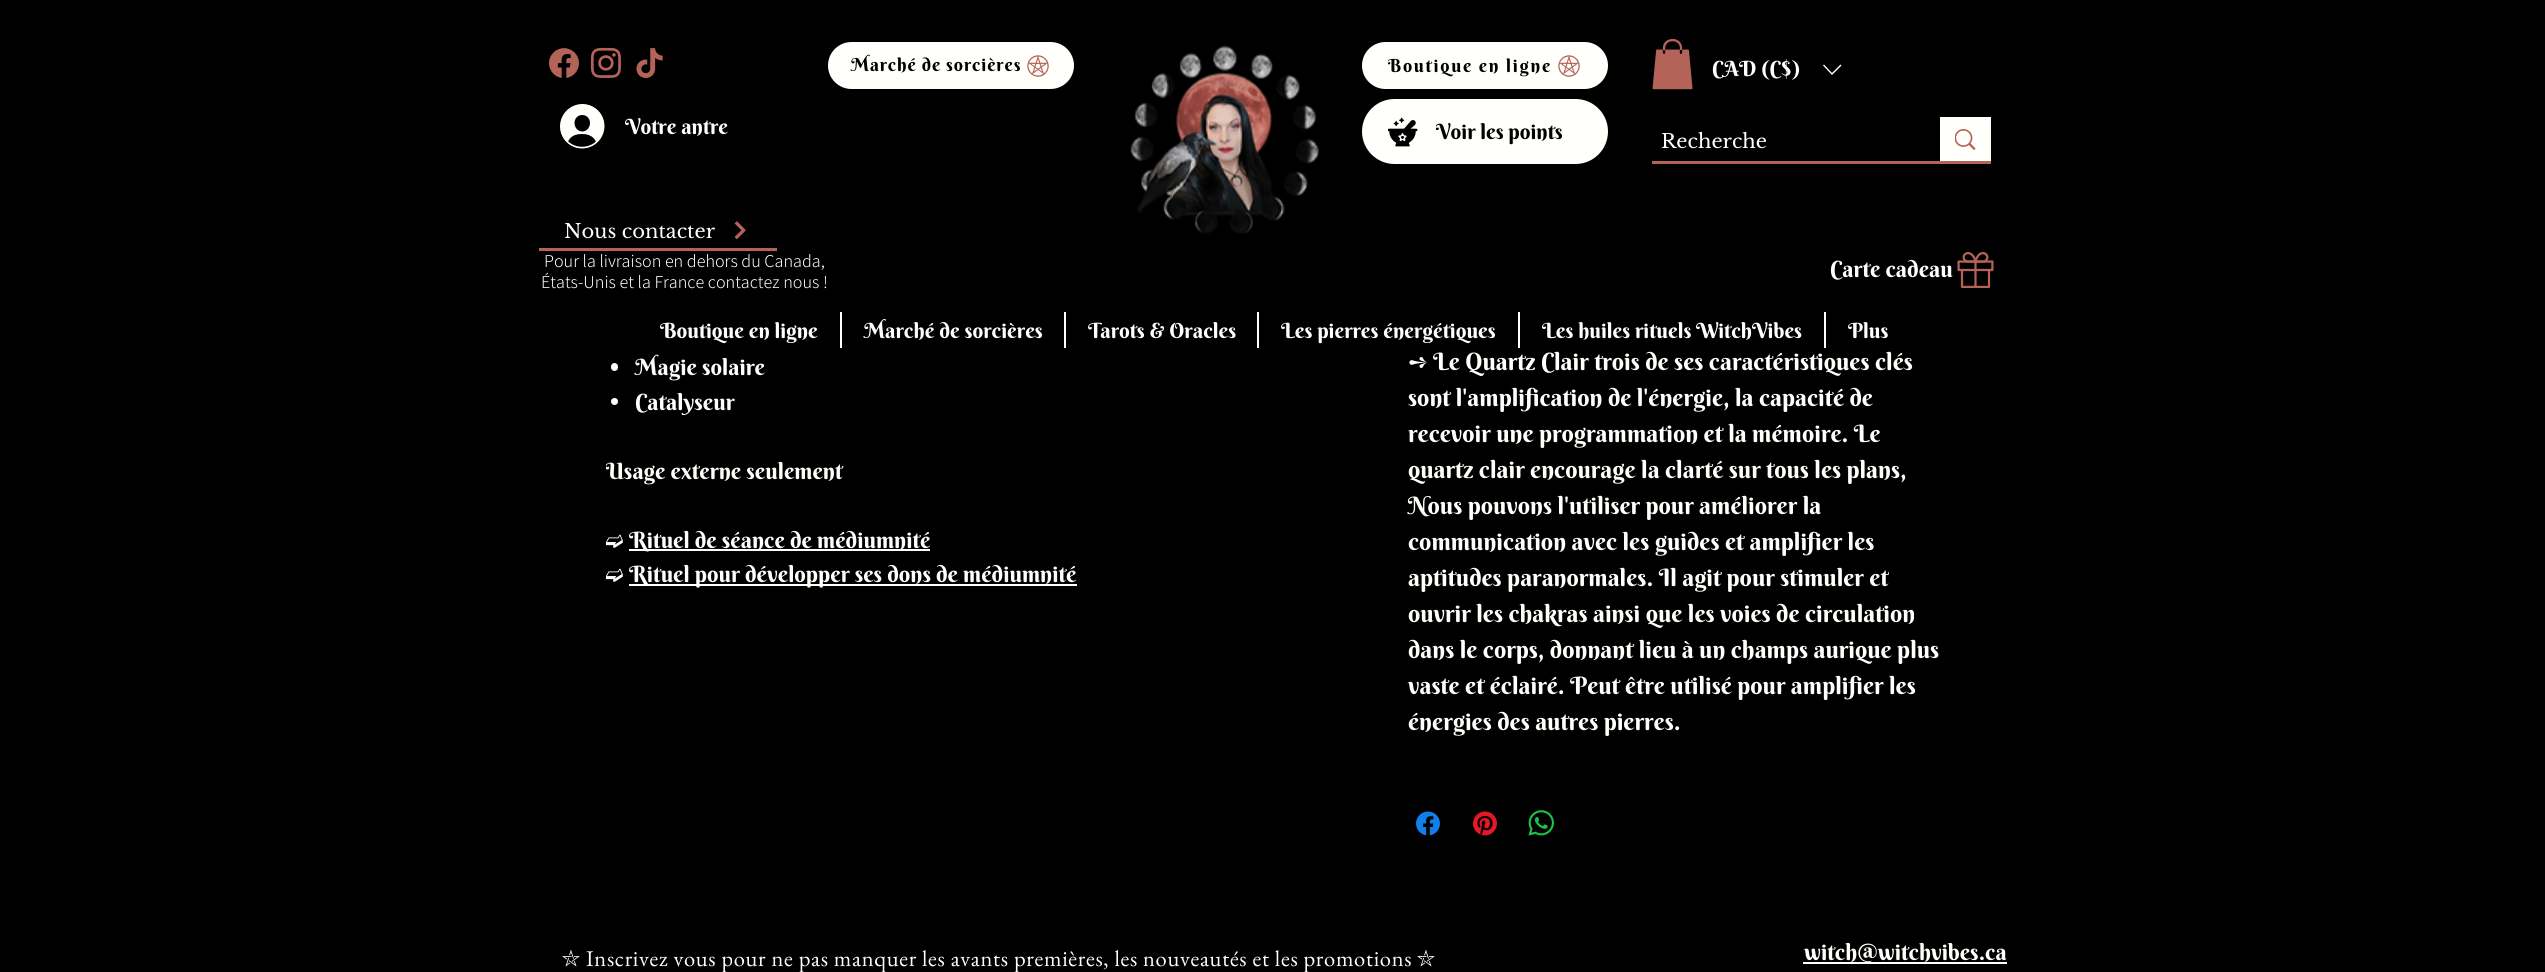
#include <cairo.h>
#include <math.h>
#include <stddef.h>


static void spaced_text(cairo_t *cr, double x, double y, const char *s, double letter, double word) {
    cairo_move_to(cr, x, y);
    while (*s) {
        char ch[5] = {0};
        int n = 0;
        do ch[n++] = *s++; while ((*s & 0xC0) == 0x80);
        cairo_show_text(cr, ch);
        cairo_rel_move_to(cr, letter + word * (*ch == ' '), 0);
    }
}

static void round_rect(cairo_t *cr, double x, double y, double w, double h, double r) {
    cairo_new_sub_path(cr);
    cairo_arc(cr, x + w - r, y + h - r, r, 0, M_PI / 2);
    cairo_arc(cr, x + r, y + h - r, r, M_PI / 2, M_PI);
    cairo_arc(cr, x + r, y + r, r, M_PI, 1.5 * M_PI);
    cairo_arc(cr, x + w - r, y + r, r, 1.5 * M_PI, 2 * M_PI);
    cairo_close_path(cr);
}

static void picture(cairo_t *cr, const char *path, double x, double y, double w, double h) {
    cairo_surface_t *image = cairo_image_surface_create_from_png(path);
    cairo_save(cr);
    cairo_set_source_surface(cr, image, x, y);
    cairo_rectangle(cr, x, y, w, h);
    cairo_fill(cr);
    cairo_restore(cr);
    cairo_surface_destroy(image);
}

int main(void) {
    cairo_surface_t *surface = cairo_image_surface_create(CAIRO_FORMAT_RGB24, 2545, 972);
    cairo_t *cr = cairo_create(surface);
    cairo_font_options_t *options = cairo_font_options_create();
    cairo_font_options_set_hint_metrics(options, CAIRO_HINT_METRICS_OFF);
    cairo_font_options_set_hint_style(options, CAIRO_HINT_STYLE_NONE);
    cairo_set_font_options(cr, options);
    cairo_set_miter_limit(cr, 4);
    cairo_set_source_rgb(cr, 0, 0, 0);
    cairo_paint(cr);
    picture(cr, "img1.png", 549, 48, 30, 30);
    picture(cr, "img2.png", 590, 47, 31, 31);
    picture(cr, "img3.png", 636, 48, 27, 30);
    cairo_set_source_rgb(cr, 1, 1, 0.984);
    round_rect(cr, 828, 42, 246, 47, 23.5);
    cairo_fill(cr);
    cairo_select_font_face(cr, "Berkshire Swash", CAIRO_FONT_SLANT_NORMAL, CAIRO_FONT_WEIGHT_NORMAL);
    cairo_set_font_size(cr, 18);
    cairo_set_source_rgb(cr, 0, 0, 0);
    spaced_text(cr, 851, 71, "Marché de sorcières", 0.9, 0);
    picture(cr, "img4.png", 1027, 55, 22, 22);
    picture(cr, "img5.png", 1130, 45, 189, 189);
    cairo_set_source_rgb(cr, 1, 1, 0.984);
    round_rect(cr, 1362, 42, 246, 47, 23.5);
    cairo_fill(cr);
    cairo_save(cr);
    cairo_rectangle(cr, 1388, 54, 165, 23);
    cairo_clip(cr);
    cairo_set_source_rgb(cr, 0, 0, 0);
    spaced_text(cr, 1387, 72, "Boutique en ligne", 1.75, 0);
    cairo_restore(cr);
    picture(cr, "img4.png", 1558, 55, 22, 22);
    picture(cr, "img6.png", 1652, 39, 41, 51);
    cairo_set_font_size(cr, 21);
    cairo_move_to(cr, 1712, 76);
    cairo_show_text(cr, "CAD (C$)");
    cairo_set_fill_rule(cr, CAIRO_FILL_RULE_EVEN_ODD);
    cairo_new_path(cr);
    cairo_move_to(cr, 1840.5, 64.5);
    cairo_line_to(cr, 1841.5, 65.5);
    cairo_line_to(cr, 1832, 75);
    cairo_line_to(cr, 1823, 65.5);
    cairo_line_to(cr, 1824, 64.5);
    cairo_line_to(cr, 1832, 73);
    cairo_close_path(cr);
    cairo_fill(cr);
    picture(cr, "img7.png", 560, 104, 45, 45);
    cairo_move_to(cr, 625, 134);
    cairo_show_text(cr, "Votre antre");
    round_rect(cr, 1362, 99, 246, 65, 32.5);
    cairo_fill(cr);
    picture(cr, "img8.png", 1388, 117, 30, 30);
    cairo_save(cr);
    cairo_set_fill_rule(cr, CAIRO_FILL_RULE_WINDING);
    cairo_rectangle(cr, 1436, 113, 127, 37);
    cairo_clip(cr);
    cairo_set_source_rgb(cr, 0, 0, 0);
    cairo_move_to(cr, 1435, 139);
    cairo_show_text(cr, "Voir les points");
    cairo_restore(cr);
    cairo_set_source_rgb(cr, 0.706, 0.388, 0.345);
    cairo_rectangle(cr, 1652, 161, 339, 3);
    cairo_fill(cr);
    cairo_select_font_face(cr, "Libre Baskerville", CAIRO_FONT_SLANT_NORMAL, CAIRO_FONT_WEIGHT_NORMAL);
    cairo_set_font_size(cr, 19.5);
    cairo_set_source_rgb(cr, 1, 1, 0.984);
    cairo_move_to(cr, 1661, 148);
    cairo_show_text(cr, "Recherche");
    cairo_rectangle(cr, 1940, 117, 51, 44);
    cairo_fill(cr);
    picture(cr, "img9.png", 1955, 129, 21, 21);
    cairo_set_source_rgb(cr, 0.706, 0.388, 0.345);
    cairo_rectangle(cr, 539, 248, 238, 3);
    cairo_fill(cr);
    cairo_set_source_rgb(cr, 1, 1, 0.984);
    cairo_move_to(cr, 564, 238);
    cairo_show_text(cr, "Nous contacter");
    picture(cr, "img10.png", 734, 221, 12, 19);
    cairo_select_font_face(cr, "Assistant Light", CAIRO_FONT_SLANT_NORMAL, CAIRO_FONT_WEIGHT_NORMAL);
    cairo_set_font_size(cr, 18);
    cairo_move_to(cr, 544, 267);
    cairo_show_text(cr, "Pour la livraison en dehors du Canada,");
    cairo_move_to(cr, 541, 288);
    cairo_show_text(cr, "États-Unis et la France contactez nous !");
    cairo_select_font_face(cr, "Berkshire Swash", CAIRO_FONT_SLANT_NORMAL, CAIRO_FONT_WEIGHT_NORMAL);
    cairo_set_font_size(cr, 22.5);
    cairo_move_to(cr, 1830, 277);
    cairo_show_text(cr, "Carte cadeau");
    picture(cr, "img11.png", 1957, 252, 37, 36);
    cairo_set_font_size(cr, 21);
    cairo_move_to(cr, 660, 338);
    cairo_show_text(cr, "Boutique en ligne");
    cairo_rectangle(cr, 840, 312, 2, 36);
    cairo_fill(cr);
    cairo_move_to(cr, 864, 338);
    cairo_show_text(cr, "Marché de sorcières");
    cairo_rectangle(cr, 1064, 312, 2, 36);
    cairo_fill(cr);
    cairo_move_to(cr, 1088, 338);
    cairo_show_text(cr, "Tarots & Oracles");
    cairo_rectangle(cr, 1257, 312, 2, 36);
    cairo_fill(cr);
    cairo_move_to(cr, 1281, 338);
    cairo_show_text(cr, "Les pierres énergétiques");
    cairo_rectangle(cr, 1518, 312, 2, 36);
    cairo_fill(cr);
    cairo_move_to(cr, 1542, 338);
    cairo_show_text(cr, "Les huiles rituels WitchVibes");
    cairo_rectangle(cr, 1824, 312, 2, 36);
    cairo_fill(cr);
    cairo_move_to(cr, 1848, 338);
    cairo_show_text(cr, "Plus");
    round_rect(cr, 611, 363, 7, 8, 3.5);
    cairo_fill(cr);
    cairo_set_font_size(cr, 22.5);
    cairo_move_to(cr, 635, 375);
    cairo_show_text(cr, "Magie solaire");
    cairo_new_path(cr);
    cairo_arc(cr, 614.5, 401.5, 3.5, 0, 2 * M_PI);
    cairo_fill(cr);
    cairo_move_to(cr, 635, 410);
    cairo_show_text(cr, "Catalyseur");
    cairo_save(cr);
    cairo_set_fill_rule(cr, CAIRO_FILL_RULE_WINDING);
    cairo_rectangle(cr, 606, 0, 750, 591);
    cairo_clip(cr);
    cairo_move_to(cr, 605, 479);
    cairo_show_text(cr, "Usage externe seulement");
    cairo_select_font_face(cr, "DejaVu Sans", CAIRO_FONT_SLANT_NORMAL, CAIRO_FONT_WEIGHT_NORMAL);
    cairo_move_to(cr, 605, 548);
    cairo_show_text(cr, "➫");
    cairo_restore(cr);
    cairo_rectangle(cr, 629, 549, 301, 2);
    cairo_fill(cr);
    cairo_move_to(cr, 629, 548);
    cairo_show_text(cr, "Rituel de séance de médiumnité");
    cairo_save(cr);
    cairo_set_fill_rule(cr, CAIRO_FILL_RULE_WINDING);
    cairo_rectangle(cr, 606, 0, 750, 591);
    cairo_clip(cr);
    cairo_select_font_face(cr, "DejaVu Sans", CAIRO_FONT_SLANT_NORMAL, CAIRO_FONT_WEIGHT_NORMAL);
    cairo_move_to(cr, 605, 582);
    cairo_show_text(cr, "➫");
    cairo_restore(cr);
    cairo_rectangle(cr, 629, 584, 448, 2);
    cairo_fill(cr);
    cairo_move_to(cr, 629, 582);
    cairo_show_text(cr, "Rituel pour développer ses dons de médiumnité");
    cairo_select_font_face(cr, "DejaVu Sans", CAIRO_FONT_SLANT_NORMAL, CAIRO_FONT_WEIGHT_NORMAL);
    cairo_set_font_size(cr, 24);
    cairo_move_to(cr, 1408, 370);
    cairo_show_text(cr, "➺");
    cairo_select_font_face(cr, "Berkshire Swash", CAIRO_FONT_SLANT_NORMAL, CAIRO_FONT_WEIGHT_NORMAL);
    cairo_move_to(cr, 1433, 370);
    cairo_show_text(cr, "Le Quartz Clair trois de ses caractéristiques clés");
    cairo_move_to(cr, 1408, 406);
    cairo_show_text(cr, "sont l'amplification de l'énergie, la capacité de");
    cairo_move_to(cr, 1408, 442);
    cairo_show_text(cr, "recevoir une programmation et la mémoire. Le");
    cairo_move_to(cr, 1408, 478);
    cairo_show_text(cr, "quartz clair encourage la clarté sur tous les plans,");
    cairo_move_to(cr, 1408, 514);
    cairo_show_text(cr, "Nous pouvons l'utiliser pour améliorer la");
    cairo_move_to(cr, 1408, 550);
    cairo_show_text(cr, "communication avec les guides et amplifier les");
    cairo_move_to(cr, 1408, 586);
    cairo_show_text(cr, "aptitudes paranormales. Il agit pour stimuler et");
    cairo_move_to(cr, 1408, 622);
    cairo_show_text(cr, "ouvrir les chakras ainsi que les voies de circulation");
    cairo_move_to(cr, 1408, 658);
    cairo_show_text(cr, "dans le corps, donnant lieu à un champs aurique plus");
    cairo_move_to(cr, 1408, 694);
    cairo_show_text(cr, "vaste et éclairé. Peut être utilisé pour amplifier les");
    cairo_move_to(cr, 1408, 730);
    cairo_show_text(cr, "énergies des autres pierres.");
    picture(cr, "img12.png", 1416, 811, 24, 25);
    picture(cr, "img13.png", 1473, 811, 24, 25);
    picture(cr, "img14.png", 1528, 810, 26, 26);
    cairo_select_font_face(cr, "FreeSans", CAIRO_FONT_SLANT_NORMAL, CAIRO_FONT_WEIGHT_NORMAL);
    cairo_set_font_size(cr, 22.5);
    spaced_text(cr, 562, 966, "⛥", 0.68, 0);
    cairo_select_font_face(cr, "EB Garamond", CAIRO_FONT_SLANT_NORMAL, CAIRO_FONT_WEIGHT_NORMAL);
    spaced_text(cr, 586, 966, "Inscrivez vous pour ne pas manquer les avants premières, les nouveautés et les promotions", 0.68, 0);
    cairo_select_font_face(cr, "FreeSans", CAIRO_FONT_SLANT_NORMAL, CAIRO_FONT_WEIGHT_NORMAL);
    spaced_text(cr, 1417, 966, "⛥", 0.68, 0);
    cairo_select_font_face(cr, "Berkshire Swash", CAIRO_FONT_SLANT_NORMAL, CAIRO_FONT_WEIGHT_NORMAL);
    cairo_move_to(cr, 1804, 960);
    cairo_show_text(cr, "witch@witchvibes.ca");
    cairo_rectangle(cr, 1803, 962, 204, 2);
    cairo_fill(cr);
    cairo_surface_write_to_png(surface, "page.png");
    cairo_font_options_destroy(options);
    cairo_destroy(cr);
    cairo_surface_destroy(surface);
    return 0;
}
